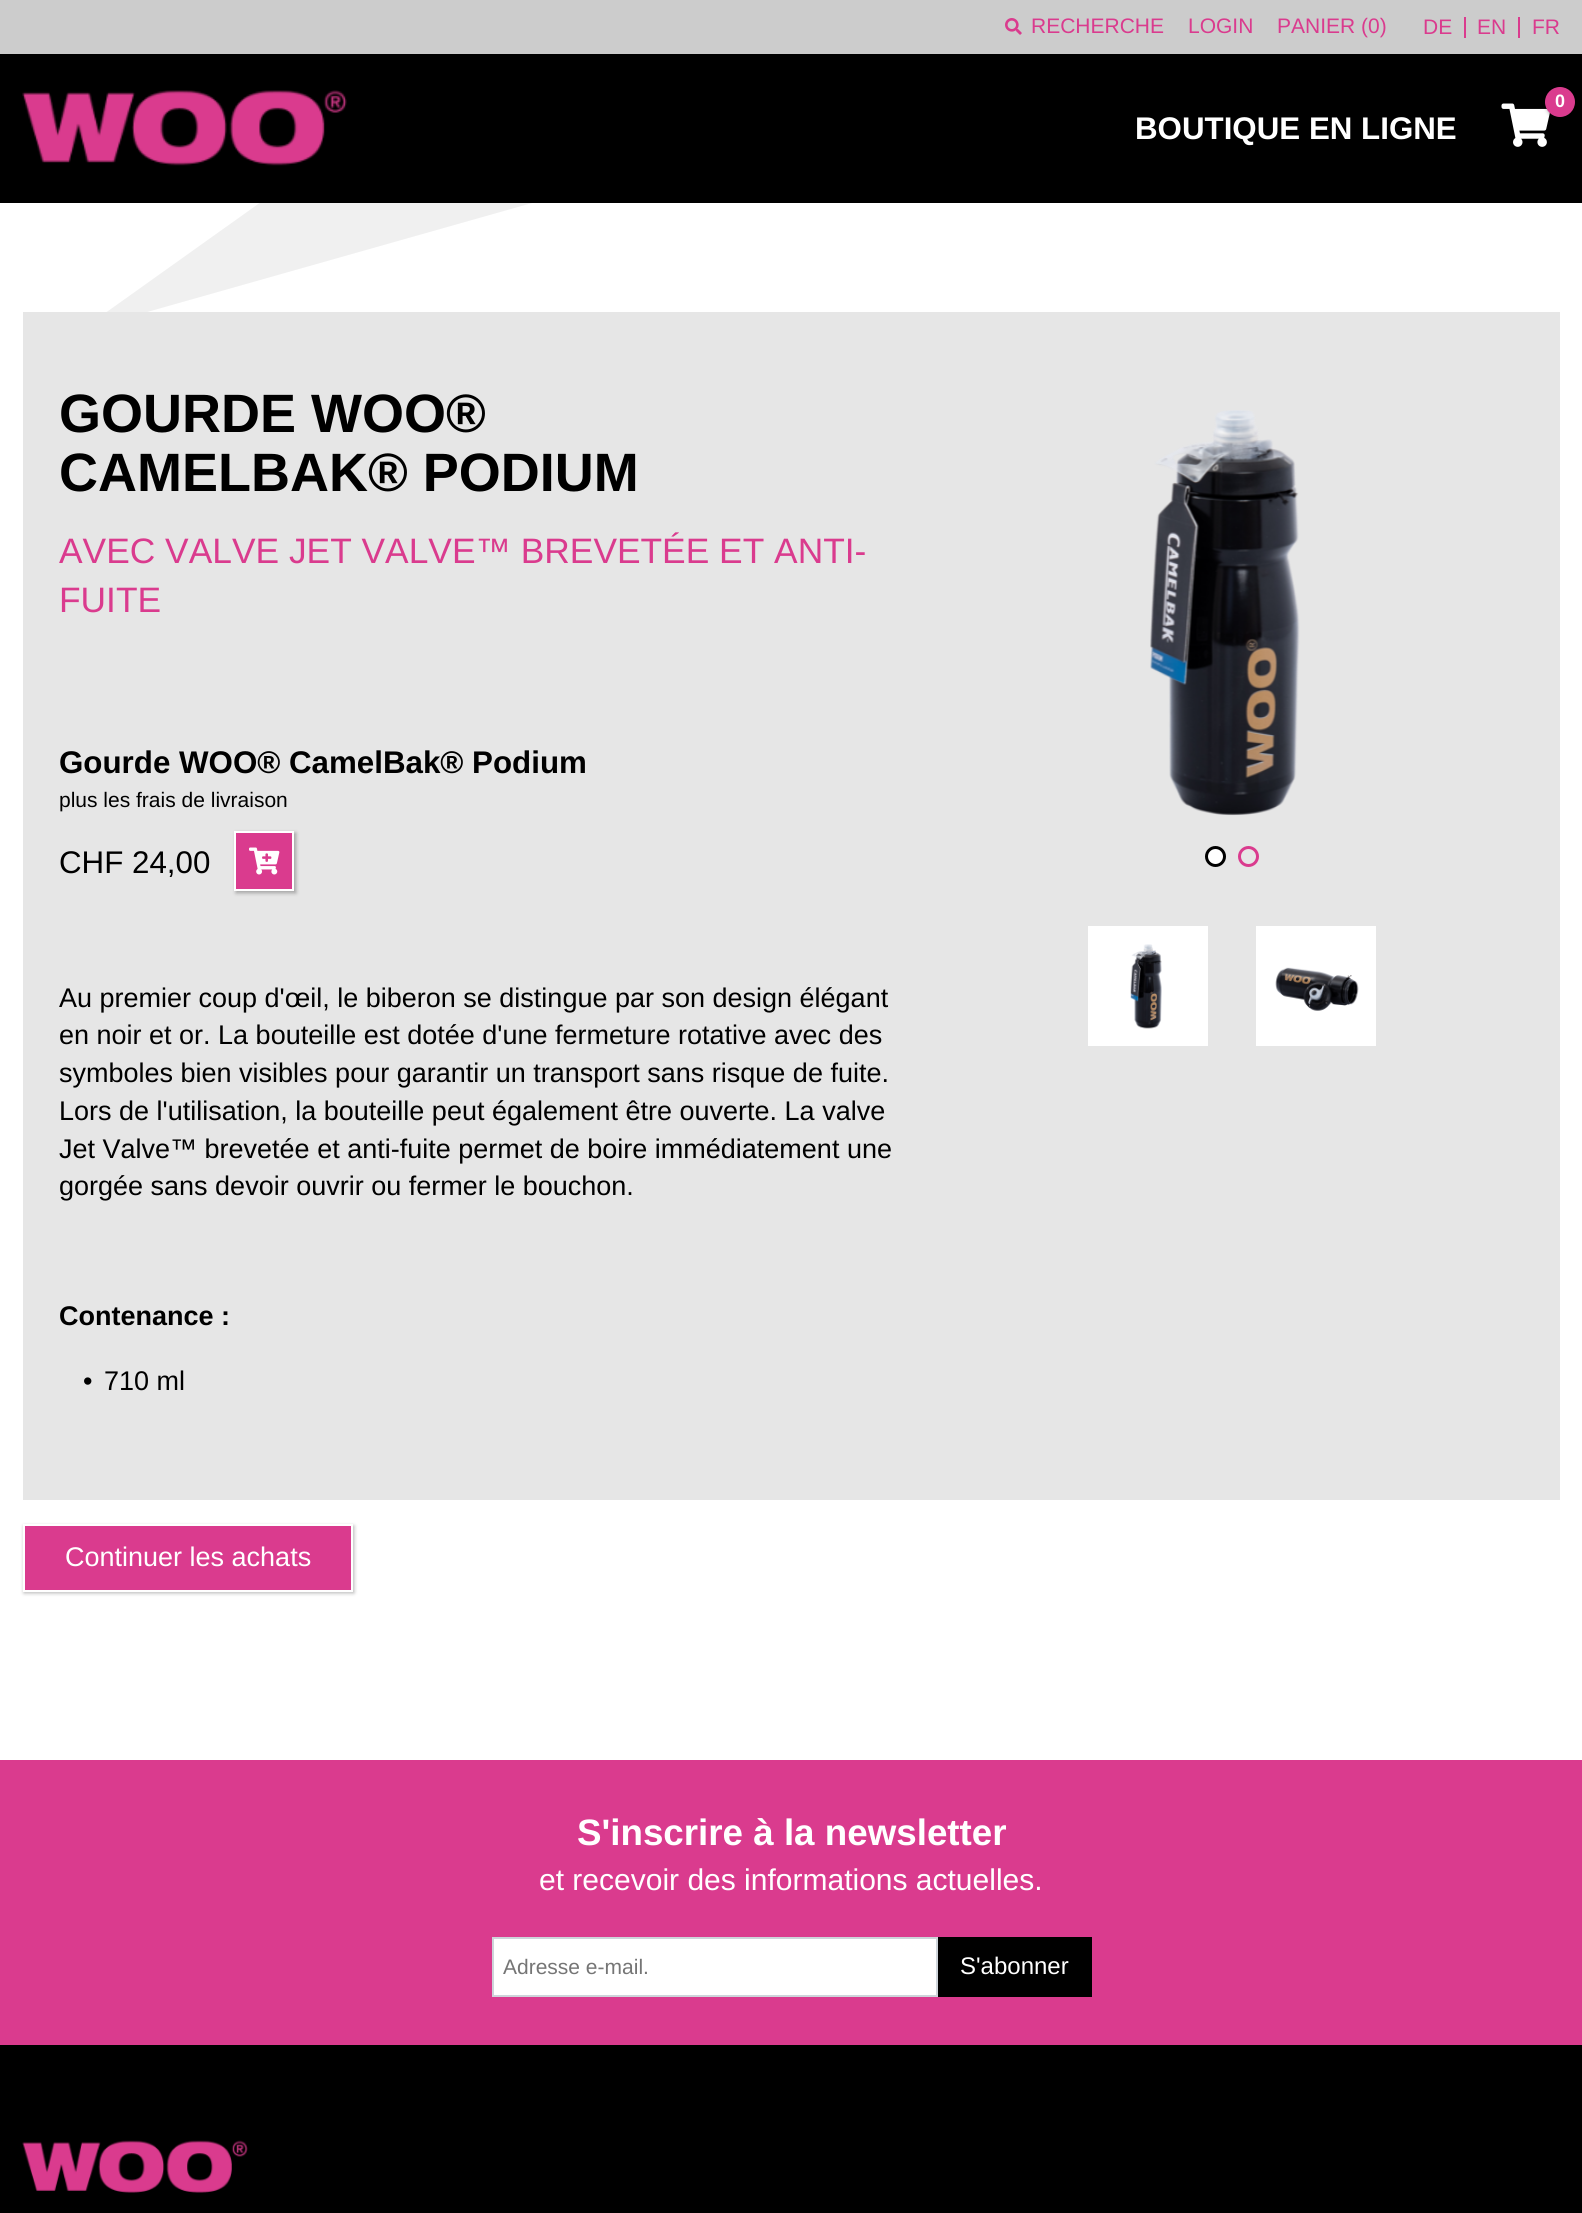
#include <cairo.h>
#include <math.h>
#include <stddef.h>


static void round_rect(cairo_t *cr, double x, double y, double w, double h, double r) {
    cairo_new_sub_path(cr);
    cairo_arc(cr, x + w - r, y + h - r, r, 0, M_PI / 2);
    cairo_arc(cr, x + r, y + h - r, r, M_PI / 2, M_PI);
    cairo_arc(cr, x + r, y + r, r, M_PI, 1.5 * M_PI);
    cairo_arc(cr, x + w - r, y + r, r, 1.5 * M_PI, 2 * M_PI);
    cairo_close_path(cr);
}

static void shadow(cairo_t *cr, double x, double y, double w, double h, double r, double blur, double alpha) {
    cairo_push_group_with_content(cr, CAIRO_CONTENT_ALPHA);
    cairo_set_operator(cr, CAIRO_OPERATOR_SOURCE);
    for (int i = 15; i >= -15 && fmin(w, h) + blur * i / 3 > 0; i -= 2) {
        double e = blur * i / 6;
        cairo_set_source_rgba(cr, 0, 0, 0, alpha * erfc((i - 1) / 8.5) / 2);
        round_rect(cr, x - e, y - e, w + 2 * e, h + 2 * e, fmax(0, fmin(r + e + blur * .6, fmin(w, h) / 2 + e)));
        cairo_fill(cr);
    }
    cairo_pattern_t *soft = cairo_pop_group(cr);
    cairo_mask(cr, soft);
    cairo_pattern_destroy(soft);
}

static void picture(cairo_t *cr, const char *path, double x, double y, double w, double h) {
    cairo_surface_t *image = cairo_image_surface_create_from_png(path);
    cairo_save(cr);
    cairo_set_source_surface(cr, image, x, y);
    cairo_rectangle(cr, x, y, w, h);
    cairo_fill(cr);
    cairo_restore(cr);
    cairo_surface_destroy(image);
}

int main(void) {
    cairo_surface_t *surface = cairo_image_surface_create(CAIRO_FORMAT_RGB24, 1582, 2213);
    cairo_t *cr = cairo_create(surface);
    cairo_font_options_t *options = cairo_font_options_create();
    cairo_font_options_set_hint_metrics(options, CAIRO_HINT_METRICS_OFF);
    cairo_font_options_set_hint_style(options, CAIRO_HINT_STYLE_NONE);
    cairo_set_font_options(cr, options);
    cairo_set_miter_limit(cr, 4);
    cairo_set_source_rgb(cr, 1, 1, 1);
    cairo_paint(cr);
    cairo_set_source_rgb(cr, 0.941, 0.941, 0.941);
    cairo_new_path(cr);
    cairo_move_to(cr, 80, 331);
    cairo_line_to(cr, 578, -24);
    cairo_line_to(cr, 871, 107);
    cairo_close_path(cr);
    cairo_fill(cr);
    cairo_set_source_rgb(cr, 0, 0, 0);
    cairo_rectangle(cr, 0, 54, 1582, 149);
    cairo_fill(cr);
    cairo_set_source_rgb(cr, 0.8, 0.8, 0.8);
    cairo_rectangle(cr, 0, 0, 1582, 54);
    cairo_fill(cr);
    picture(cr, "img1.png", 1005, 18, 17, 17);
    cairo_select_font_face(cr, "Liberation Sans", CAIRO_FONT_SLANT_NORMAL, CAIRO_FONT_WEIGHT_NORMAL);
    cairo_set_font_size(cr, 21);
    cairo_set_source_rgb(cr, 0.855, 0.231, 0.557);
    cairo_move_to(cr, 1031, 33);
    cairo_show_text(cr, "RECHERCHE");
    cairo_move_to(cr, 1188, 33);
    cairo_show_text(cr, "LOGIN");
    cairo_move_to(cr, 1277, 33);
    cairo_show_text(cr, "PANIER (0)");
    cairo_move_to(cr, 1423, 34);
    cairo_show_text(cr, "DE");
    cairo_rectangle(cr, 1464, 17, 2, 21);
    cairo_fill(cr);
    cairo_move_to(cr, 1477, 34);
    cairo_show_text(cr, "EN");
    cairo_rectangle(cr, 1518, 17, 2, 21);
    cairo_fill(cr);
    cairo_move_to(cr, 1532, 34);
    cairo_show_text(cr, "FR");
    picture(cr, "img2.png", 22, 90, 325, 76);
    picture(cr, "img3.png", 1501, 103, 49, 44);
    cairo_set_source_rgb(cr, 0, 0, 0);
    shadow(cr, 1547, 89, 30, 30, 15, 2, 0.5);
    cairo_set_source_rgb(cr, 0.855, 0.231, 0.557);
    cairo_arc(cr, 1560, 102, 15, 0, 2 * M_PI);
    cairo_fill(cr);
    cairo_select_font_face(cr, "Liberation Sans", CAIRO_FONT_SLANT_NORMAL, CAIRO_FONT_WEIGHT_BOLD);
    cairo_set_font_size(cr, 18);
    cairo_set_source_rgb(cr, 1, 1, 1);
    cairo_move_to(cr, 1555, 107);
    cairo_show_text(cr, "0");
    cairo_set_font_size(cr, 31.3);
    cairo_move_to(cr, 1135, 139);
    cairo_show_text(cr, "BOUTIQUE EN LIGNE");
    cairo_set_source_rgb(cr, 0.902, 0.902, 0.902);
    cairo_rectangle(cr, 23, 312, 1537, 1188);
    cairo_fill(cr);
    cairo_set_font_size(cr, 54);
    cairo_set_source_rgb(cr, 0, 0, 0);
    cairo_move_to(cr, 59, 432);
    cairo_show_text(cr, "GOURDE WOO®");
    cairo_move_to(cr, 59, 491);
    cairo_show_text(cr, "CAMELBAK® PODIUM");
    cairo_select_font_face(cr, "Liberation Sans", CAIRO_FONT_SLANT_NORMAL, CAIRO_FONT_WEIGHT_NORMAL);
    cairo_set_font_size(cr, 35.35);
    cairo_set_source_rgb(cr, 0.855, 0.231, 0.557);
    cairo_move_to(cr, 59, 563);
    cairo_show_text(cr, "AVEC VALVE JET VALVE™ BREVETÉE ET ANTI-");
    cairo_move_to(cr, 59, 612);
    cairo_show_text(cr, "FUITE");
    cairo_select_font_face(cr, "Liberation Sans", CAIRO_FONT_SLANT_NORMAL, CAIRO_FONT_WEIGHT_BOLD);
    cairo_set_font_size(cr, 31.3);
    cairo_set_source_rgb(cr, 0, 0, 0);
    cairo_move_to(cr, 59, 773);
    cairo_show_text(cr, "Gourde WOO® CamelBak® Podium");
    cairo_select_font_face(cr, "Liberation Sans", CAIRO_FONT_SLANT_NORMAL, CAIRO_FONT_WEIGHT_NORMAL);
    cairo_set_font_size(cr, 21);
    cairo_move_to(cr, 59, 807);
    cairo_show_text(cr, "plus les frais de livraison");
    cairo_set_font_size(cr, 31.3);
    cairo_move_to(cr, 59, 873);
    cairo_show_text(cr, "CHF 24,00");
    cairo_set_source_rgb(cr, 0, 0, 0);
    shadow(cr, 236, 833, 60, 60, 0, 2, 0.3);
    cairo_set_source_rgb(cr, 0.855, 0.231, 0.557);
    cairo_rectangle(cr, 235, 832, 58, 58);
    cairo_fill_preserve(cr);
    cairo_set_source_rgb(cr, 1, 1, 1);
    cairo_stroke(cr);
    picture(cr, "img4.png", 249, 847, 31, 28);
    cairo_set_font_size(cr, 27);
    cairo_set_source_rgb(cr, 0, 0, 0);
    cairo_move_to(cr, 59, 1007);
    cairo_show_text(cr, "Au premier coup d'œil, le biberon se distingue par son design élégant");
    cairo_move_to(cr, 59, 1044);
    cairo_show_text(cr, "en noir et or. La bouteille est dotée d'une fermeture rotative avec des");
    cairo_move_to(cr, 59, 1082);
    cairo_show_text(cr, "symboles bien visibles pour garantir un transport sans risque de fuite.");
    cairo_move_to(cr, 59, 1120);
    cairo_show_text(cr, "Lors de l'utilisation, la bouteille peut également être ouverte. La valve");
    cairo_move_to(cr, 59, 1158);
    cairo_show_text(cr, "Jet Valve™ brevetée et anti-fuite permet de boire immédiatement une");
    cairo_move_to(cr, 59, 1195);
    cairo_show_text(cr, "gorgée sans devoir ouvrir ou fermer le bouchon.");
    cairo_select_font_face(cr, "Liberation Sans", CAIRO_FONT_SLANT_NORMAL, CAIRO_FONT_WEIGHT_BOLD);
    cairo_move_to(cr, 59, 1325);
    cairo_show_text(cr, "Contenance :");
    cairo_select_font_face(cr, "Liberation Sans", CAIRO_FONT_SLANT_NORMAL, CAIRO_FONT_WEIGHT_NORMAL);
    cairo_move_to(cr, 83, 1390);
    cairo_show_text(cr, "•");
    cairo_move_to(cr, 104, 1390);
    cairo_show_text(cr, "710 ml");
    picture(cr, "img5.png", 1150, 410, 150, 406);
    cairo_set_source_rgb(cr, 1, 1, 1);
    cairo_arc(cr, 1215.5, 856.5, 9, 0, 2 * M_PI);
    cairo_fill_preserve(cr);
    cairo_set_source_rgb(cr, 0, 0, 0);
    cairo_set_line_width(cr, 3);
    cairo_stroke(cr);
    cairo_arc(cr, 1248.5, 856.5, 9, 0, 2 * M_PI);
    cairo_set_source_rgb(cr, 0.855, 0.231, 0.557);
    cairo_stroke(cr);
    cairo_set_source_rgb(cr, 1, 1, 1);
    cairo_rectangle(cr, 1088, 926, 120, 120);
    cairo_fill(cr);
    picture(cr, "img6.png", 1130, 944, 32, 85);
    cairo_rectangle(cr, 1256, 926, 120, 120);
    cairo_fill(cr);
    picture(cr, "img7.png", 1275, 967, 84, 44);
    cairo_set_source_rgb(cr, 0, 0, 0);
    shadow(cr, 24, 1526, 330, 67, 0, 2, 0.3);
    cairo_set_source_rgb(cr, 0.855, 0.231, 0.557);
    cairo_rectangle(cr, 24, 1525, 328, 66);
    cairo_fill_preserve(cr);
    cairo_set_source_rgb(cr, 1, 1, 1);
    cairo_set_line_width(cr, 2);
    cairo_stroke(cr);
    cairo_move_to(cr, 65, 1566);
    cairo_show_text(cr, "Continuer les achats");
    cairo_set_source_rgb(cr, 0.855, 0.231, 0.557);
    cairo_rectangle(cr, 0, 1760, 1582, 285);
    cairo_fill(cr);
    cairo_select_font_face(cr, "Liberation Sans", CAIRO_FONT_SLANT_NORMAL, CAIRO_FONT_WEIGHT_BOLD);
    cairo_set_font_size(cr, 36.75);
    cairo_set_source_rgb(cr, 1, 1, 1);
    cairo_move_to(cr, 577, 1845);
    cairo_show_text(cr, "S'inscrire à la newsletter");
    cairo_select_font_face(cr, "Liberation Sans", CAIRO_FONT_SLANT_NORMAL, CAIRO_FONT_WEIGHT_NORMAL);
    cairo_set_font_size(cr, 30);
    cairo_move_to(cr, 539, 1890);
    cairo_show_text(cr, "et recevoir des informations actuelles.");
    cairo_rectangle(cr, 493, 1938, 444, 58);
    cairo_fill_preserve(cr);
    cairo_set_source_rgb(cr, 0.808, 0.831, 0.855);
    cairo_stroke(cr);
    cairo_set_font_size(cr, 21);
    cairo_set_source_rgb(cr, 0.459, 0.459, 0.459);
    cairo_move_to(cr, 503, 1974);
    cairo_show_text(cr, "Adresse e-mail.");
    cairo_set_source_rgb(cr, 0, 0, 0);
    cairo_rectangle(cr, 938, 1937, 154, 60);
    cairo_fill(cr);
    cairo_set_font_size(cr, 24);
    cairo_set_source_rgb(cr, 1, 1, 1);
    cairo_move_to(cr, 960, 1974);
    cairo_show_text(cr, "S'abonner");
    cairo_set_source_rgb(cr, 0, 0, 0);
    cairo_rectangle(cr, 0, 2045, 1582, 168);
    cairo_fill(cr);
    picture(cr, "img8.png", 22, 2140, 226, 53);
    cairo_surface_write_to_png(surface, "page.png");
    cairo_font_options_destroy(options);
    cairo_destroy(cr);
    cairo_surface_destroy(surface);
    return 0;
}
